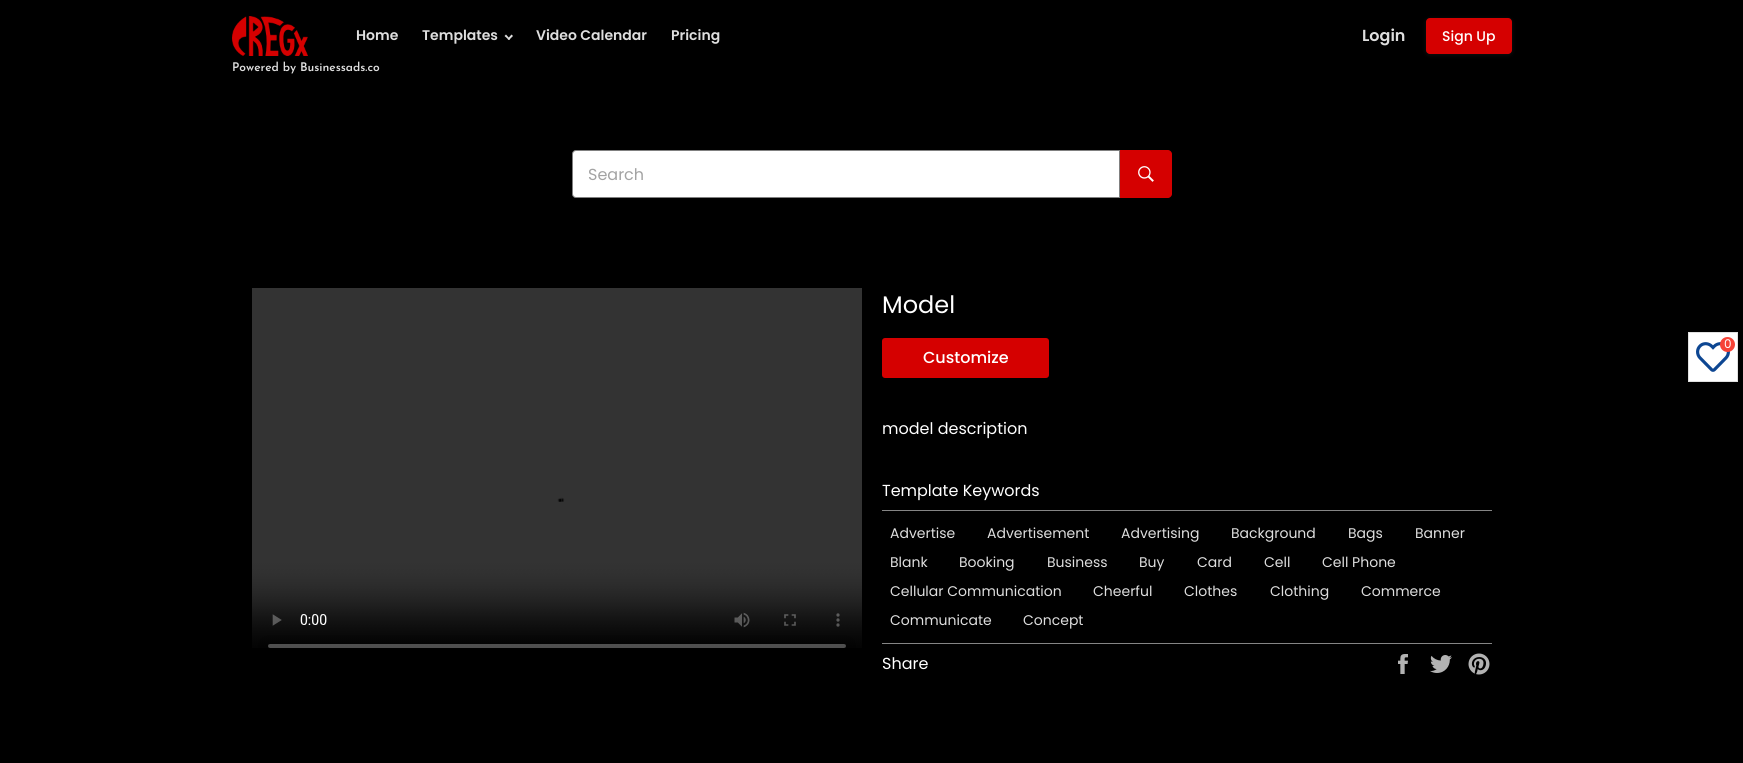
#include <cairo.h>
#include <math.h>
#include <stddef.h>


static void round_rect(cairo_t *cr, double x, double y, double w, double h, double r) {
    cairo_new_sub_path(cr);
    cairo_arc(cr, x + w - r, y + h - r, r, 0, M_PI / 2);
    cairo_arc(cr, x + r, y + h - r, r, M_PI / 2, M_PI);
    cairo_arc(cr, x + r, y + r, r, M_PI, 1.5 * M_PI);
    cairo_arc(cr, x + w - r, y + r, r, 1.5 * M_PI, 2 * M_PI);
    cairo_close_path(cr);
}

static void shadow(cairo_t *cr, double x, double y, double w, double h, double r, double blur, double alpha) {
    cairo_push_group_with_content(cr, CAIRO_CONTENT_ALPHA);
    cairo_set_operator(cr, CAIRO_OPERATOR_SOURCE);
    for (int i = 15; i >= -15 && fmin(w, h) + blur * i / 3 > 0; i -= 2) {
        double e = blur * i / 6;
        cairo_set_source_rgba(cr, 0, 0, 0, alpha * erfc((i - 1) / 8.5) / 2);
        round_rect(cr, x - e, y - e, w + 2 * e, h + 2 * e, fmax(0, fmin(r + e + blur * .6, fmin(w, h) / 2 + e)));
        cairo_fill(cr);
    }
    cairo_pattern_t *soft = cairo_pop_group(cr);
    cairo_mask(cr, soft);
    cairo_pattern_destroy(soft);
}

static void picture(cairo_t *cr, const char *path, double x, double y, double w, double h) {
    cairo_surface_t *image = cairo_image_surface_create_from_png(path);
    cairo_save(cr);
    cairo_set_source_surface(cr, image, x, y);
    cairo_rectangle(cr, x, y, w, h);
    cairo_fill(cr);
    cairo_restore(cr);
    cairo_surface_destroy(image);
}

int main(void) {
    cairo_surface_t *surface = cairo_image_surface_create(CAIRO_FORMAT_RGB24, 1743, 763);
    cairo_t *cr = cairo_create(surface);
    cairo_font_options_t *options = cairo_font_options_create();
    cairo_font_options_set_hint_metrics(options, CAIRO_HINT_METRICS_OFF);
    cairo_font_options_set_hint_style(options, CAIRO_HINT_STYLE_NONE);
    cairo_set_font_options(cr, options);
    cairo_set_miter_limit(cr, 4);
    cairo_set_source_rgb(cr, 0, 0, 0);
    cairo_paint(cr);
    cairo_select_font_face(cr, "Poppins SemiBold", CAIRO_FONT_SLANT_NORMAL, CAIRO_FONT_WEIGHT_NORMAL);
    cairo_set_font_size(cr, 14);
    cairo_set_source_rgb(cr, 0.871, 0.871, 0.871);
    cairo_move_to(cr, 356, 40);
    cairo_show_text(cr, "Home");
    cairo_move_to(cr, 422, 40);
    cairo_show_text(cr, "Templates");
    cairo_new_path(cr);
    cairo_move_to(cr, 511.5, 34.5);
    cairo_line_to(cr, 513, 36);
    cairo_line_to(cr, 509, 40);
    cairo_line_to(cr, 507.5, 39);
    cairo_close_path(cr);
    cairo_fill(cr);
    cairo_new_path(cr);
    cairo_move_to(cr, 506, 34.5);
    cairo_line_to(cr, 510, 39);
    cairo_line_to(cr, 509, 40);
    cairo_line_to(cr, 504.5, 36);
    cairo_close_path(cr);
    cairo_fill(cr);
    cairo_move_to(cr, 536, 40);
    cairo_show_text(cr, "Video Calendar");
    cairo_move_to(cr, 671, 40);
    cairo_show_text(cr, "Pricing");
    cairo_set_font_size(cr, 16);
    cairo_move_to(cr, 1362, 41);
    cairo_show_text(cr, "Login");
    cairo_set_source_rgb(cr, 0.259, 0.259, 0.259);
    shadow(cr, 1425, 18, 88, 38, 5, 1.5, 0.16);
    cairo_set_source_rgb(cr, 0.835, 0, 0);
    round_rect(cr, 1426, 18, 86, 36, 4);
    cairo_fill(cr);
    cairo_select_font_face(cr, "Poppins Medium", CAIRO_FONT_SLANT_NORMAL, CAIRO_FONT_WEIGHT_NORMAL);
    cairo_set_font_size(cr, 14);
    cairo_set_source_rgb(cr, 1, 1, 1);
    cairo_move_to(cr, 1442, 41);
    cairo_show_text(cr, "Sign Up");
    picture(cr, "img1.png", 232, 16, 76, 40);
    cairo_select_font_face(cr, "Josefin Sans SemiBold", CAIRO_FONT_SLANT_NORMAL, CAIRO_FONT_WEIGHT_NORMAL);
    cairo_set_font_size(cr, 12);
    cairo_set_source_rgb(cr, 0.871, 0.871, 0.871);
    cairo_move_to(cr, 232, 71);
    cairo_show_text(cr, "Powered by Businessads.co");
    cairo_set_source_rgb(cr, 1, 1, 1);
    cairo_new_path(cr);
    cairo_move_to(cr, 576, 150.5);
    cairo_line_to(cr, 1119.5, 150.5);
    cairo_line_to(cr, 1119.5, 197.5);
    cairo_line_to(cr, 576, 197.5);
    cairo_curve_to(cr, 574, 197.5, 572.5, 196, 572.5, 194);
    cairo_line_to(cr, 572.5, 154);
    cairo_curve_to(cr, 572.5, 152, 574, 150.5, 576, 150.5);
    cairo_close_path(cr);
    cairo_fill_preserve(cr);
    cairo_set_source_rgb(cr, 0.502, 0.502, 0.502);
    cairo_set_line_width(cr, 1);
    cairo_stroke(cr);
    cairo_select_font_face(cr, "Poppins", CAIRO_FONT_SLANT_NORMAL, CAIRO_FONT_WEIGHT_NORMAL);
    cairo_set_font_size(cr, 16);
    cairo_set_source_rgb(cr, 0.639, 0.639, 0.639);
    cairo_move_to(cr, 588, 180);
    cairo_show_text(cr, "Search");
    cairo_set_source_rgb(cr, 0.835, 0, 0);
    cairo_new_path(cr);
    cairo_move_to(cr, 1120, 150);
    cairo_line_to(cr, 1168, 150);
    cairo_curve_to(cr, 1170, 150, 1172, 152, 1172, 154);
    cairo_line_to(cr, 1172, 194);
    cairo_curve_to(cr, 1172, 196, 1170, 198, 1168, 198);
    cairo_line_to(cr, 1120, 198);
    cairo_close_path(cr);
    cairo_fill(cr);
    picture(cr, "img2.png", 1138, 166, 16, 16);
    picture(cr, "img3.png", 252, 288, 610, 360);
    cairo_set_font_size(cr, 24);
    cairo_set_source_rgb(cr, 1, 1, 1);
    cairo_move_to(cr, 882, 313);
    cairo_show_text(cr, "Model");
    cairo_set_source_rgb(cr, 0.835, 0, 0);
    round_rect(cr, 882, 338, 167, 40, 3);
    cairo_fill(cr);
    cairo_select_font_face(cr, "Poppins Medium", CAIRO_FONT_SLANT_NORMAL, CAIRO_FONT_WEIGHT_NORMAL);
    cairo_set_font_size(cr, 16);
    cairo_set_source_rgb(cr, 1, 1, 1);
    cairo_move_to(cr, 923, 363);
    cairo_show_text(cr, "Customize");
    cairo_select_font_face(cr, "Poppins", CAIRO_FONT_SLANT_NORMAL, CAIRO_FONT_WEIGHT_NORMAL);
    cairo_move_to(cr, 882, 434);
    cairo_show_text(cr, "model description");
    cairo_move_to(cr, 882, 496);
    cairo_show_text(cr, "Template Keywords");
    cairo_set_source_rgb(cr, 0.522, 0.522, 0.522);
    cairo_rectangle(cr, 882, 510, 610, 1);
    cairo_fill(cr);
    cairo_set_font_size(cr, 14);
    cairo_set_source_rgb(cr, 0.871, 0.871, 0.871);
    cairo_move_to(cr, 890, 538);
    cairo_show_text(cr, "Advertise");
    cairo_move_to(cr, 987, 538);
    cairo_show_text(cr, "Advertisement");
    cairo_move_to(cr, 1121, 538);
    cairo_show_text(cr, "Advertising");
    cairo_move_to(cr, 1231, 538);
    cairo_show_text(cr, "Background");
    cairo_move_to(cr, 1348, 538);
    cairo_show_text(cr, "Bags");
    cairo_move_to(cr, 1415, 538);
    cairo_show_text(cr, "Banner");
    cairo_move_to(cr, 890, 567);
    cairo_show_text(cr, "Blank");
    cairo_move_to(cr, 959, 567);
    cairo_show_text(cr, "Booking");
    cairo_move_to(cr, 1047, 567);
    cairo_show_text(cr, "Business");
    cairo_move_to(cr, 1139, 567);
    cairo_show_text(cr, "Buy");
    cairo_move_to(cr, 1197, 567);
    cairo_show_text(cr, "Card");
    cairo_move_to(cr, 1264, 567);
    cairo_show_text(cr, "Cell");
    cairo_move_to(cr, 1322, 567);
    cairo_show_text(cr, "Cell Phone");
    cairo_move_to(cr, 890, 596);
    cairo_show_text(cr, "Cellular Communication");
    cairo_move_to(cr, 1093, 596);
    cairo_show_text(cr, "Cheerful");
    cairo_move_to(cr, 1184, 596);
    cairo_show_text(cr, "Clothes");
    cairo_move_to(cr, 1270, 596);
    cairo_show_text(cr, "Clothing");
    cairo_move_to(cr, 1361, 596);
    cairo_show_text(cr, "Commerce");
    cairo_move_to(cr, 890, 625);
    cairo_show_text(cr, "Communicate");
    cairo_move_to(cr, 1023, 625);
    cairo_show_text(cr, "Concept");
    cairo_set_source_rgb(cr, 0.522, 0.522, 0.522);
    cairo_rectangle(cr, 882, 643, 610, 1);
    cairo_fill(cr);
    cairo_set_font_size(cr, 16);
    cairo_set_source_rgb(cr, 1, 1, 1);
    cairo_move_to(cr, 882, 669);
    cairo_show_text(cr, "Share");
    picture(cr, "img4.png", 1398, 654, 10, 20);
    picture(cr, "img5.png", 1430, 655, 22, 18);
    picture(cr, "img6.png", 1468, 653, 22, 22);
    cairo_rectangle(cr, 1688.5, 332.5, 49, 49);
    cairo_fill_preserve(cr);
    cairo_set_source_rgb(cr, 0.878, 0.878, 0.878);
    cairo_stroke(cr);
    picture(cr, "img7.png", 1696, 342, 34, 30);
    cairo_set_source_rgb(cr, 0.961, 0.263, 0.216);
    cairo_arc(cr, 1727.5, 344.5, 7.5, 0, 2 * M_PI);
    cairo_fill(cr);
    cairo_set_font_size(cr, 12);
    cairo_set_source_rgb(cr, 1, 1, 1);
    cairo_move_to(cr, 1724, 348);
    cairo_show_text(cr, "0");
    cairo_surface_write_to_png(surface, "page.png");
    cairo_font_options_destroy(options);
    cairo_destroy(cr);
    cairo_surface_destroy(surface);
    return 0;
}
